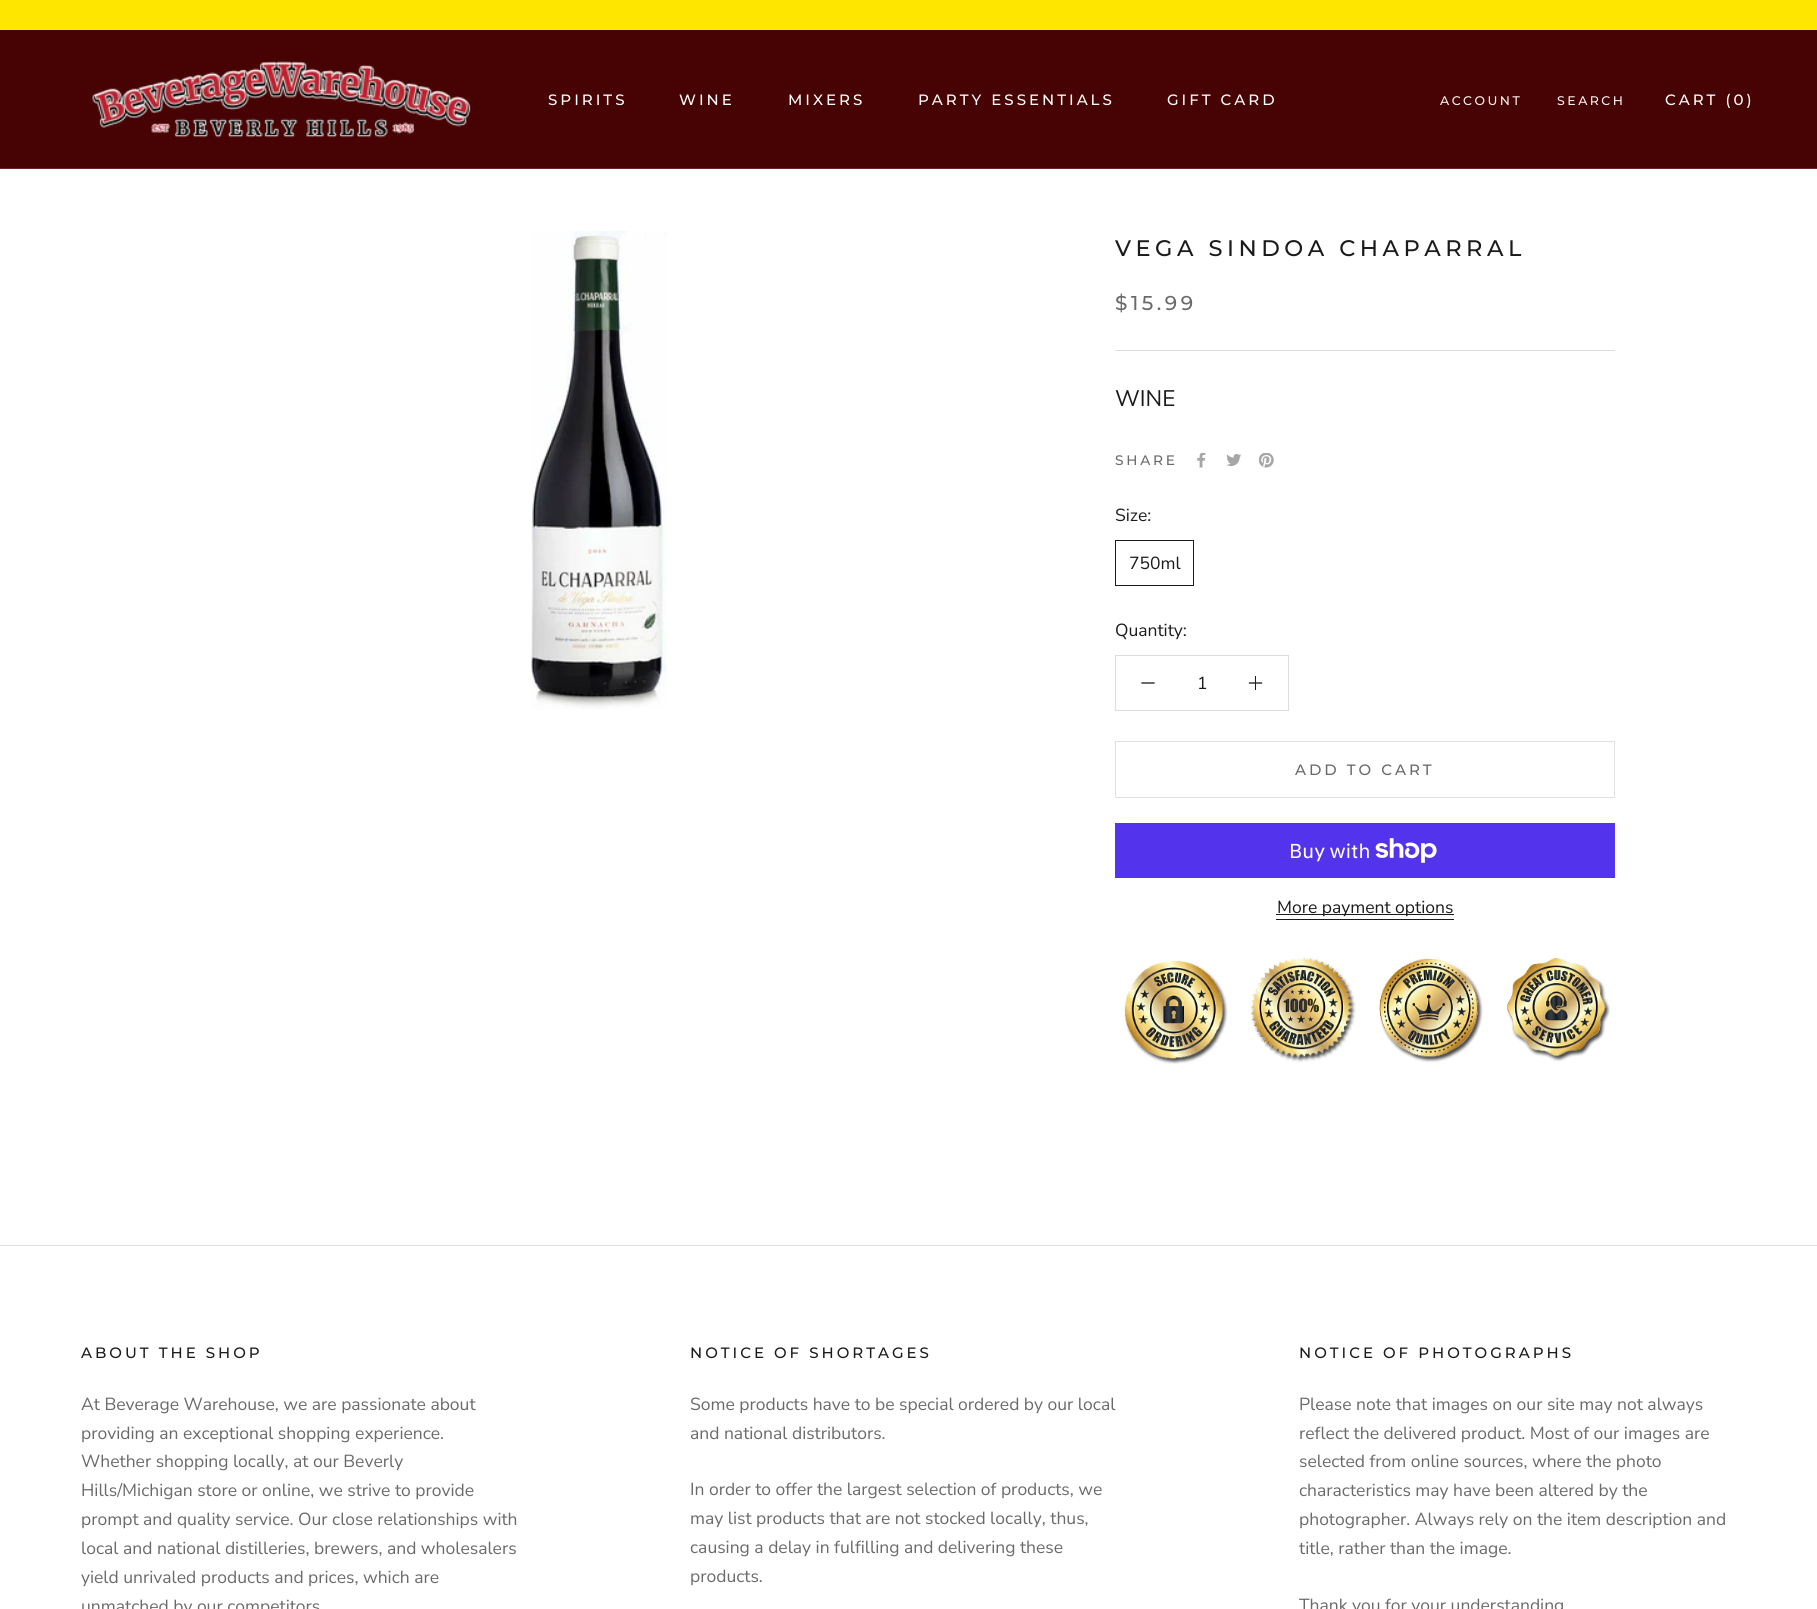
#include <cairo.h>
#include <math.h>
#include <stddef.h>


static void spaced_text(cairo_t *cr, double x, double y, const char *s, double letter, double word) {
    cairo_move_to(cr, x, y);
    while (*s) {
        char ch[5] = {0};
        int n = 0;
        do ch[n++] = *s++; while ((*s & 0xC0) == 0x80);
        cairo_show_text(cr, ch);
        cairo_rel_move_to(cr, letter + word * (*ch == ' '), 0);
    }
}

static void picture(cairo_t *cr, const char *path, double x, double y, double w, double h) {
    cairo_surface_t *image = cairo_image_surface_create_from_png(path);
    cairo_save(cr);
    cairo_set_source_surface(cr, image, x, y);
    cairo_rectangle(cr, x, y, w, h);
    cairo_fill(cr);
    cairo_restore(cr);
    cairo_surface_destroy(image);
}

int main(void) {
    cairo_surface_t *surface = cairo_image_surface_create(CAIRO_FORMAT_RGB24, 1817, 1609);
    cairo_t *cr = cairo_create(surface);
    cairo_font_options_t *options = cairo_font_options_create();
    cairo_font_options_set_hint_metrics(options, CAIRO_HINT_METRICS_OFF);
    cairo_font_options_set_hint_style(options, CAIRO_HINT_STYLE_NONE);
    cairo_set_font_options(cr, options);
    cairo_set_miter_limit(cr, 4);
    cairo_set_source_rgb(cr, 1, 1, 1);
    cairo_paint(cr);
    cairo_set_source_rgb(cr, 1, 0.902, 0);
    cairo_rectangle(cr, 0, 0, 1817, 30);
    cairo_fill(cr);
    cairo_set_source_rgb(cr, 0.278, 0.012, 0.012);
    cairo_rectangle(cr, 0, 30, 1817, 138);
    cairo_fill(cr);
    cairo_set_source_rgb(cr, 0.388, 0.161, 0.161);
    cairo_rectangle(cr, 0, 168, 1817, 1);
    cairo_fill(cr);
    picture(cr, "img1.png", 92, 61, 379, 77);
    cairo_select_font_face(cr, "Montserrat Medium", CAIRO_FONT_SLANT_NORMAL, CAIRO_FONT_WEIGHT_NORMAL);
    cairo_set_font_size(cr, 15);
    cairo_set_source_rgb(cr, 1, 1, 1);
    spaced_text(cr, 548, 105, "SPIRITS", 3, 0);
    spaced_text(cr, 679, 105, "WINE", 3, 0);
    spaced_text(cr, 788, 105, "MIXERS", 3, 0);
    spaced_text(cr, 918, 105, "PARTY ESSENTIALS", 3, 0);
    spaced_text(cr, 1167, 105, "GIFT CARD", 3, 0);
    cairo_set_font_size(cr, 12.5);
    cairo_set_source_rgb(cr, 1, 0.945, 0.945);
    spaced_text(cr, 1440, 105, "ACCOUNT", 2.5, 0);
    spaced_text(cr, 1557, 105, "SEARCH", 2.5, 0);
    cairo_set_font_size(cr, 15);
    cairo_set_source_rgb(cr, 1, 1, 1);
    spaced_text(cr, 1665, 105, "CART (0)", 3, 0);
    picture(cr, "img2.png", 531, 231, 136, 478);
    cairo_set_source_rgb(cr, 0.867, 0.867, 0.867);
    cairo_rectangle(cr, 1115, 350, 500, 1);
    cairo_fill(cr);
    cairo_set_font_size(cr, 22.5);
    cairo_set_source_rgb(cr, 0.11, 0.106, 0.106);
    spaced_text(cr, 1115, 256, "VEGA SINDOA CHAPARRAL", 4.5, 0);
    cairo_set_font_size(cr, 20);
    cairo_set_source_rgb(cr, 0.416, 0.416, 0.416);
    spaced_text(cr, 1115, 310, "$15.99", 3.5, 0);
    cairo_select_font_face(cr, "Nunito Sans", CAIRO_FONT_SLANT_NORMAL, CAIRO_FONT_WEIGHT_NORMAL);
    cairo_set_font_size(cr, 22.5);
    cairo_set_source_rgb(cr, 0.11, 0.106, 0.106);
    cairo_move_to(cr, 1115, 406);
    cairo_show_text(cr, "WINE");
    cairo_select_font_face(cr, "Montserrat Medium", CAIRO_FONT_SLANT_NORMAL, CAIRO_FONT_WEIGHT_NORMAL);
    cairo_set_font_size(cr, 13.75);
    cairo_set_source_rgb(cr, 0.416, 0.416, 0.416);
    spaced_text(cr, 1115, 465, "SHARE", 2.75, 0);
    picture(cr, "img3.png", 1197, 453, 9, 15);
    picture(cr, "img4.png", 1226, 454, 15, 13);
    picture(cr, "img5.png", 1259, 453, 15, 15);
    cairo_select_font_face(cr, "Nunito Sans", CAIRO_FONT_SLANT_NORMAL, CAIRO_FONT_WEIGHT_NORMAL);
    cairo_set_font_size(cr, 17.5);
    cairo_set_source_rgb(cr, 0.11, 0.106, 0.106);
    cairo_move_to(cr, 1115, 521);
    cairo_show_text(cr, "Size:");
    cairo_rectangle(cr, 1115.5, 540.5, 78, 45);
    cairo_set_line_width(cr, 1);
    cairo_stroke(cr);
    cairo_move_to(cr, 1129, 569);
    cairo_show_text(cr, "750ml");
    cairo_move_to(cr, 1115, 636);
    cairo_show_text(cr, "Quantity:");
    cairo_rectangle(cr, 1115.5, 655.5, 173, 55);
    cairo_set_source_rgb(cr, 0.867, 0.867, 0.867);
    cairo_stroke(cr);
    cairo_new_path(cr);
    cairo_move_to(cr, 1142, 683);
    cairo_line_to(cr, 1154, 683);
    cairo_set_source_rgb(cr, 0.11, 0.106, 0.106);
    cairo_set_line_width(cr, 1.3);
    cairo_set_line_cap(cr, CAIRO_LINE_CAP_SQUARE);
    cairo_stroke(cr);
    cairo_move_to(cr, 1197, 689);
    cairo_show_text(cr, "1");
    cairo_rectangle(cr, 1255, 676, 1, 14);
    cairo_fill(cr);
    cairo_new_path(cr);
    cairo_move_to(cr, 1249.5, 683);
    cairo_line_to(cr, 1261.5, 683);
    cairo_stroke(cr);
    cairo_rectangle(cr, 1115.5, 741.5, 499, 56);
    cairo_set_source_rgb(cr, 0.882, 0.882, 0.882);
    cairo_set_line_width(cr, 1);
    cairo_set_line_cap(cr, CAIRO_LINE_CAP_BUTT);
    cairo_stroke(cr);
    cairo_select_font_face(cr, "Montserrat Medium", CAIRO_FONT_SLANT_NORMAL, CAIRO_FONT_WEIGHT_NORMAL);
    cairo_set_font_size(cr, 15);
    cairo_set_source_rgb(cr, 0.416, 0.416, 0.416);
    spaced_text(cr, 1295, 775, "ADD TO CART", 3, 0);
    cairo_set_source_rgb(cr, 0.329, 0.2, 0.922);
    cairo_rectangle(cr, 1115, 823, 500, 55);
    cairo_fill(cr);
    cairo_select_font_face(cr, "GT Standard", CAIRO_FONT_SLANT_NORMAL, CAIRO_FONT_WEIGHT_NORMAL);
    cairo_set_font_size(cr, 20);
    cairo_set_source_rgb(cr, 1, 1, 1);
    cairo_move_to(cr, 1289, 858);
    cairo_show_text(cr, "Buy with");
    picture(cr, "img6.png", 1375, 838, 62, 25);
    cairo_set_source_rgb(cr, 0.11, 0.106, 0.106);
    cairo_rectangle(cr, 1276, 914, 178, 1);
    cairo_fill(cr);
    cairo_select_font_face(cr, "Nunito Sans", CAIRO_FONT_SLANT_NORMAL, CAIRO_FONT_WEIGHT_NORMAL);
    cairo_set_font_size(cr, 17.5);
    cairo_move_to(cr, 1277, 913);
    cairo_show_text(cr, "More payment options");
    cairo_rectangle(cr, 1276, 919, 178, 1);
    cairo_fill(cr);
    picture(cr, "img7.png", 1124, 957, 486, 107);
    cairo_set_source_rgb(cr, 0.867, 0.867, 0.867);
    cairo_rectangle(cr, 0, 1245, 1817, 1);
    cairo_fill(cr);
    cairo_select_font_face(cr, "Montserrat Medium", CAIRO_FONT_SLANT_NORMAL, CAIRO_FONT_WEIGHT_NORMAL);
    cairo_set_font_size(cr, 15);
    cairo_set_source_rgb(cr, 0.11, 0.106, 0.106);
    spaced_text(cr, 81, 1358, "ABOUT THE SHOP", 3, 0);
    cairo_select_font_face(cr, "Nunito Sans", CAIRO_FONT_SLANT_NORMAL, CAIRO_FONT_WEIGHT_NORMAL);
    cairo_set_font_size(cr, 17.5);
    cairo_set_source_rgb(cr, 0.416, 0.416, 0.416);
    cairo_move_to(cr, 81, 1410);
    cairo_show_text(cr, "At Beverage Warehouse, we are passionate about");
    cairo_move_to(cr, 81, 1439);
    cairo_show_text(cr, "providing an exceptional shopping experience.");
    cairo_move_to(cr, 81, 1467);
    cairo_show_text(cr, "Whether shopping locally, at our Beverly");
    cairo_move_to(cr, 81, 1496);
    cairo_show_text(cr, "Hills/Michigan store or online, we strive to provide");
    cairo_move_to(cr, 81, 1525);
    cairo_show_text(cr, "prompt and quality service. Our close relationships with");
    cairo_move_to(cr, 81, 1554);
    cairo_show_text(cr, "local and national distilleries, brewers, and wholesalers");
    cairo_move_to(cr, 81, 1583);
    cairo_show_text(cr, "yield unrivaled products and prices, which are");
    cairo_move_to(cr, 81, 1612);
    cairo_show_text(cr, "unmatched by our competitors");
    cairo_select_font_face(cr, "Montserrat Medium", CAIRO_FONT_SLANT_NORMAL, CAIRO_FONT_WEIGHT_NORMAL);
    cairo_set_font_size(cr, 15);
    cairo_set_source_rgb(cr, 0.11, 0.106, 0.106);
    spaced_text(cr, 690, 1358, "NOTICE OF SHORTAGES", 3, 0);
    cairo_select_font_face(cr, "Nunito Sans", CAIRO_FONT_SLANT_NORMAL, CAIRO_FONT_WEIGHT_NORMAL);
    cairo_set_font_size(cr, 17.5);
    cairo_set_source_rgb(cr, 0.416, 0.416, 0.416);
    cairo_move_to(cr, 690, 1410);
    cairo_show_text(cr, "Some products have to be special ordered by our local");
    cairo_move_to(cr, 690, 1439);
    cairo_show_text(cr, "and national distributors.");
    cairo_move_to(cr, 690, 1495);
    cairo_show_text(cr, "In order to offer the largest selection of products, we");
    cairo_move_to(cr, 690, 1524);
    cairo_show_text(cr, "may list products that are not stocked locally, thus,");
    cairo_move_to(cr, 690, 1553);
    cairo_show_text(cr, "causing a delay in fulfilling and delivering these");
    cairo_move_to(cr, 690, 1582);
    cairo_show_text(cr, "products.");
    cairo_select_font_face(cr, "Montserrat Medium", CAIRO_FONT_SLANT_NORMAL, CAIRO_FONT_WEIGHT_NORMAL);
    cairo_set_font_size(cr, 15);
    cairo_set_source_rgb(cr, 0.11, 0.106, 0.106);
    spaced_text(cr, 1299, 1358, "NOTICE OF PHOTOGRAPHS", 3, 0);
    cairo_select_font_face(cr, "Nunito Sans", CAIRO_FONT_SLANT_NORMAL, CAIRO_FONT_WEIGHT_NORMAL);
    cairo_set_font_size(cr, 17.5);
    cairo_set_source_rgb(cr, 0.416, 0.416, 0.416);
    cairo_move_to(cr, 1299, 1410);
    cairo_show_text(cr, "Please note that images on our site may not always");
    cairo_move_to(cr, 1299, 1439);
    cairo_show_text(cr, "reflect the delivered product. Most of our images are");
    cairo_move_to(cr, 1299, 1467);
    cairo_show_text(cr, "selected from online sources, where the photo");
    cairo_move_to(cr, 1299, 1496);
    cairo_show_text(cr, "characteristics may have been altered by the");
    cairo_move_to(cr, 1299, 1525);
    cairo_show_text(cr, "photographer. Always rely on the item description and");
    cairo_move_to(cr, 1299, 1554);
    cairo_show_text(cr, "title, rather than the image.");
    cairo_move_to(cr, 1299, 1611);
    cairo_show_text(cr, "Thank you for your understanding");
    cairo_surface_write_to_png(surface, "page.png");
    cairo_font_options_destroy(options);
    cairo_destroy(cr);
    cairo_surface_destroy(surface);
    return 0;
}
